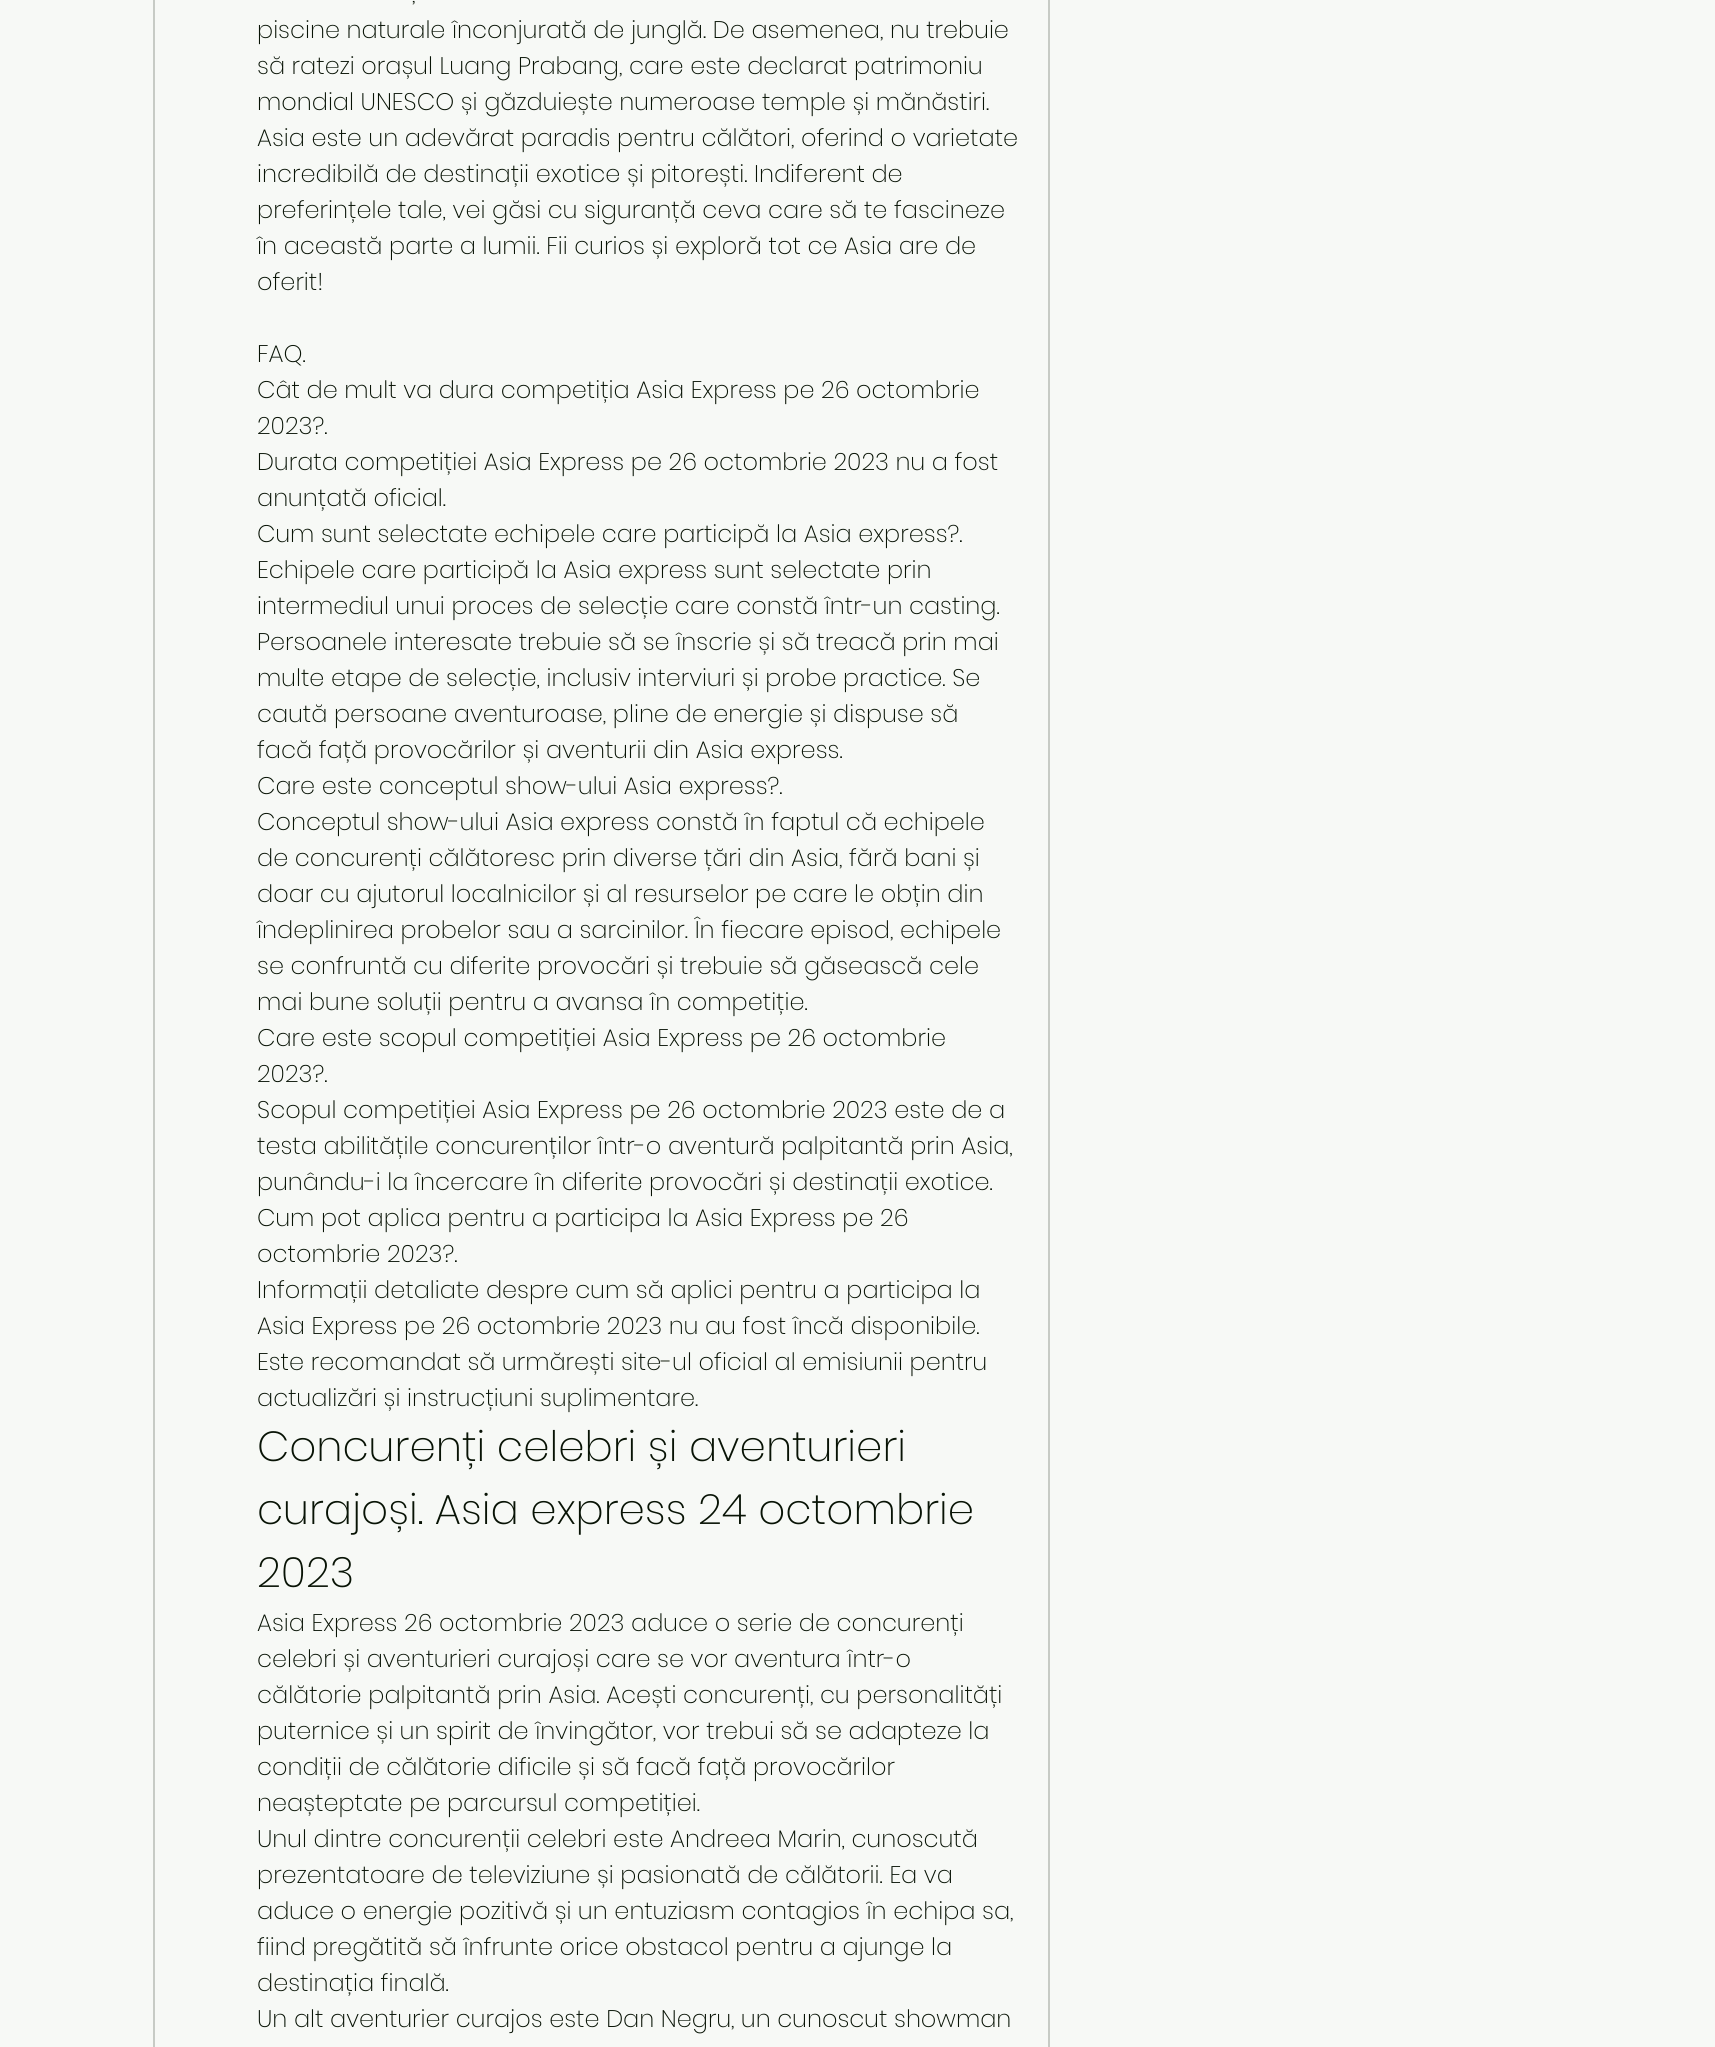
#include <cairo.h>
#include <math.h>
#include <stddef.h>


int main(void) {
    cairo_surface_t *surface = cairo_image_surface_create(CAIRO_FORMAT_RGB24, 1715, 2047);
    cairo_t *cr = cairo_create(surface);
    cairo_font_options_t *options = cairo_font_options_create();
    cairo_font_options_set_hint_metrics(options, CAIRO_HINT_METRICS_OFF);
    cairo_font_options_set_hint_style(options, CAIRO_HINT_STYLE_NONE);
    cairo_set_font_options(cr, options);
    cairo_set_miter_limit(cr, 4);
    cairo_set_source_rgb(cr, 0.965, 0.976, 0.961);
    cairo_paint(cr);
    cairo_rectangle(cr, 154, -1, 895, 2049);
    cairo_set_source_rgb(cr, 0.78, 0.796, 0.773);
    cairo_stroke(cr);
    cairo_select_font_face(cr, "Poppins ExtraLight", CAIRO_FONT_SLANT_NORMAL, CAIRO_FONT_WEIGHT_NORMAL);
    cairo_set_font_size(cr, 24);
    cairo_set_source_rgb(cr, 0.035, 0.078, 0.02);
    cairo_move_to(cr, 412, 2);
    cairo_show_text(cr, ",");
    cairo_move_to(cr, 257, 38);
    cairo_show_text(cr, "piscine naturale înconjurată de junglă. De asemenea, nu trebuie");
    cairo_move_to(cr, 257, 74);
    cairo_show_text(cr, "să ratezi orașul Luang Prabang, care este declarat patrimoniu");
    cairo_move_to(cr, 257, 110);
    cairo_show_text(cr, "mondial UNESCO și găzduiește numeroase temple și mănăstiri.");
    cairo_move_to(cr, 257, 146);
    cairo_show_text(cr, "Asia este un adevărat paradis pentru călători, oferind o varietate");
    cairo_move_to(cr, 257, 182);
    cairo_show_text(cr, "incredibilă de destinații exotice și pitorești. Indiferent de");
    cairo_move_to(cr, 257, 218);
    cairo_show_text(cr, "preferințele tale, vei găsi cu siguranță ceva care să te fascineze");
    cairo_move_to(cr, 257, 254);
    cairo_show_text(cr, "în această parte a lumii. Fii curios și exploră tot ce Asia are de");
    cairo_move_to(cr, 257, 290);
    cairo_show_text(cr, "oferit!");
    cairo_move_to(cr, 257, 362);
    cairo_show_text(cr, "FAQ.");
    cairo_move_to(cr, 257, 398);
    cairo_show_text(cr, "Cât de mult va dura competiția Asia Express pe 26 octombrie");
    cairo_move_to(cr, 257, 434);
    cairo_show_text(cr, "2023?.");
    cairo_move_to(cr, 257, 470);
    cairo_show_text(cr, "Durata competiției Asia Express pe 26 octombrie 2023 nu a fost");
    cairo_move_to(cr, 257, 506);
    cairo_show_text(cr, "anunțată oficial.");
    cairo_move_to(cr, 257, 542);
    cairo_show_text(cr, "Cum sunt selectate echipele care participă la Asia express?.");
    cairo_move_to(cr, 257, 578);
    cairo_show_text(cr, "Echipele care participă la Asia express sunt selectate prin");
    cairo_move_to(cr, 257, 614);
    cairo_show_text(cr, "intermediul unui proces de selecție care constă într-un casting.");
    cairo_move_to(cr, 257, 650);
    cairo_show_text(cr, "Persoanele interesate trebuie să se înscrie și să treacă prin mai");
    cairo_move_to(cr, 257, 686);
    cairo_show_text(cr, "multe etape de selecție, inclusiv interviuri și probe practice. Se");
    cairo_move_to(cr, 257, 722);
    cairo_show_text(cr, "caută persoane aventuroase, pline de energie și dispuse să");
    cairo_move_to(cr, 257, 758);
    cairo_show_text(cr, "facă față provocărilor și aventurii din Asia express.");
    cairo_move_to(cr, 257, 794);
    cairo_show_text(cr, "Care este conceptul show-ului Asia express?.");
    cairo_move_to(cr, 257, 830);
    cairo_show_text(cr, "Conceptul show-ului Asia express constă în faptul că echipele");
    cairo_move_to(cr, 257, 866);
    cairo_show_text(cr, "de concurenți călătoresc prin diverse țări din Asia, fără bani și");
    cairo_move_to(cr, 257, 902);
    cairo_show_text(cr, "doar cu ajutorul localnicilor și al resurselor pe care le obțin din");
    cairo_move_to(cr, 257, 938);
    cairo_show_text(cr, "îndeplinirea probelor sau a sarcinilor. În fiecare episod, echipele");
    cairo_move_to(cr, 257, 974);
    cairo_show_text(cr, "se confruntă cu diferite provocări și trebuie să găsească cele");
    cairo_move_to(cr, 257, 1010);
    cairo_show_text(cr, "mai bune soluții pentru a avansa în competiție.");
    cairo_move_to(cr, 257, 1046);
    cairo_show_text(cr, "Care este scopul competiției Asia Express pe 26 octombrie");
    cairo_move_to(cr, 257, 1082);
    cairo_show_text(cr, "2023?.");
    cairo_move_to(cr, 257, 1118);
    cairo_show_text(cr, "Scopul competiției Asia Express pe 26 octombrie 2023 este de a");
    cairo_move_to(cr, 257, 1154);
    cairo_show_text(cr, "testa abilitățile concurenților într-o aventură palpitantă prin Asia,");
    cairo_move_to(cr, 257, 1190);
    cairo_show_text(cr, "punându-i la încercare în diferite provocări și destinații exotice.");
    cairo_move_to(cr, 257, 1226);
    cairo_show_text(cr, "Cum pot aplica pentru a participa la Asia Express pe 26");
    cairo_move_to(cr, 257, 1262);
    cairo_show_text(cr, "octombrie 2023?.");
    cairo_move_to(cr, 257, 1298);
    cairo_show_text(cr, "Informații detaliate despre cum să aplici pentru a participa la");
    cairo_move_to(cr, 257, 1334);
    cairo_show_text(cr, "Asia Express pe 26 octombrie 2023 nu au fost încă disponibile.");
    cairo_move_to(cr, 257, 1370);
    cairo_show_text(cr, "Este recomandat să urmărești site-ul oficial al emisiunii pentru");
    cairo_move_to(cr, 257, 1406);
    cairo_show_text(cr, "actualizări și instrucțiuni suplimentare.");
    cairo_set_font_size(cr, 42);
    cairo_move_to(cr, 257, 1461);
    cairo_show_text(cr, "Concurenți celebri și aventurieri");
    cairo_move_to(cr, 257, 1524);
    cairo_show_text(cr, "curajoși. Asia express 24 octombrie");
    cairo_move_to(cr, 257, 1587);
    cairo_show_text(cr, "2023");
    cairo_set_font_size(cr, 24);
    cairo_move_to(cr, 257, 1631);
    cairo_show_text(cr, "Asia Express 26 octombrie 2023 aduce o serie de concurenți");
    cairo_move_to(cr, 257, 1667);
    cairo_show_text(cr, "celebri și aventurieri curajoși care se vor aventura într-o");
    cairo_move_to(cr, 257, 1703);
    cairo_show_text(cr, "călătorie palpitantă prin Asia. Acești concurenți, cu personalități");
    cairo_move_to(cr, 257, 1739);
    cairo_show_text(cr, "puternice și un spirit de învingător, vor trebui să se adapteze la");
    cairo_move_to(cr, 257, 1775);
    cairo_show_text(cr, "condiții de călătorie dificile și să facă față provocărilor");
    cairo_move_to(cr, 257, 1811);
    cairo_show_text(cr, "neașteptate pe parcursul competiției.");
    cairo_move_to(cr, 257, 1847);
    cairo_show_text(cr, "Unul dintre concurenții celebri este Andreea Marin, cunoscută");
    cairo_move_to(cr, 257, 1883);
    cairo_show_text(cr, "prezentatoare de televiziune și pasionată de călătorii. Ea va");
    cairo_move_to(cr, 257, 1919);
    cairo_show_text(cr, "aduce o energie pozitivă și un entuziasm contagios în echipa sa,");
    cairo_move_to(cr, 257, 1955);
    cairo_show_text(cr, "fiind pregătită să înfrunte orice obstacol pentru a ajunge la");
    cairo_move_to(cr, 257, 1991);
    cairo_show_text(cr, "destinația finală.");
    cairo_move_to(cr, 257, 2027);
    cairo_show_text(cr, "Un alt aventurier curajos este Dan Negru, un cunoscut showman");
    cairo_surface_write_to_png(surface, "page.png");
    cairo_font_options_destroy(options);
    cairo_destroy(cr);
    cairo_surface_destroy(surface);
    return 0;
}
